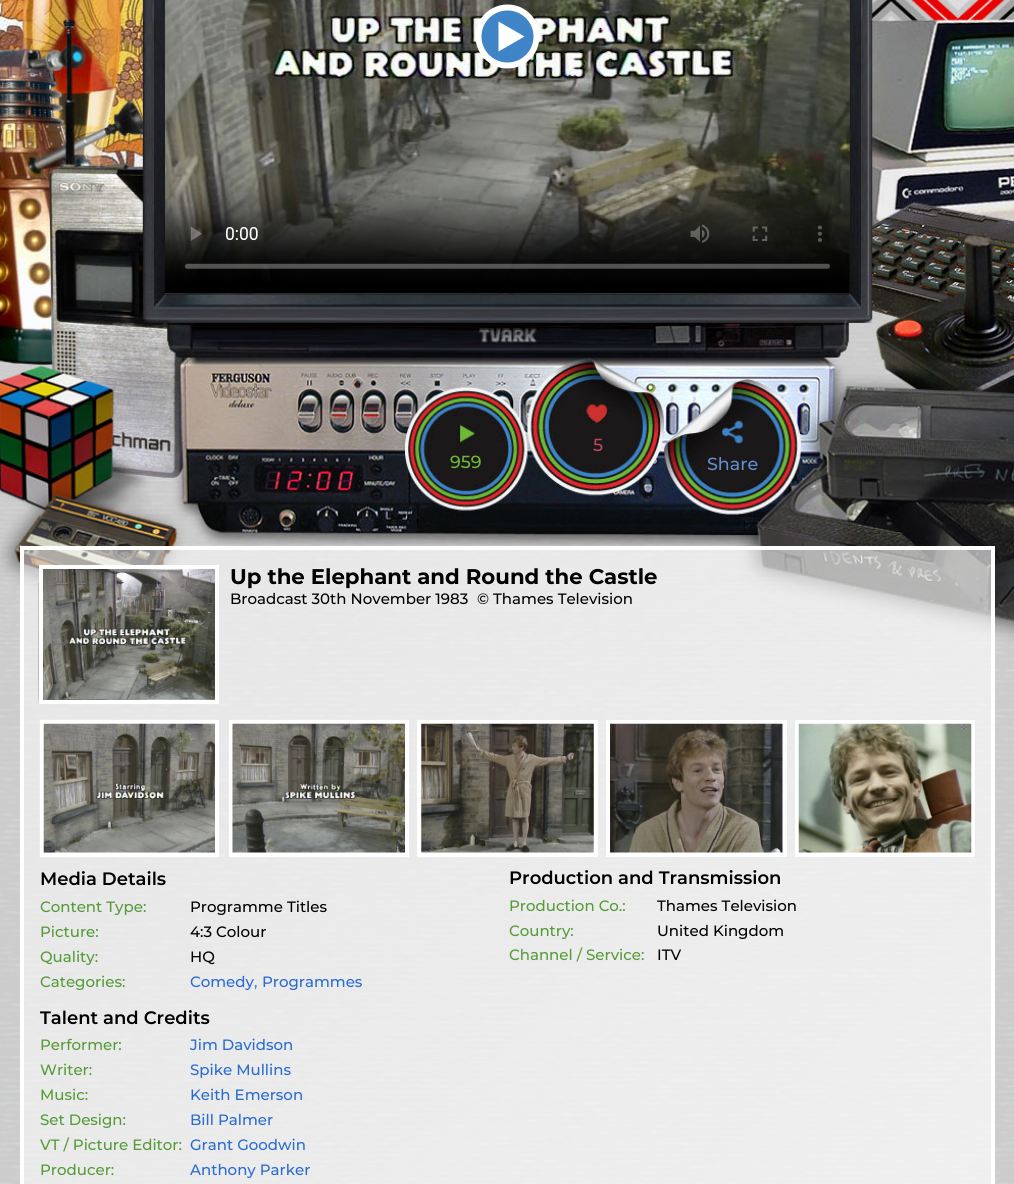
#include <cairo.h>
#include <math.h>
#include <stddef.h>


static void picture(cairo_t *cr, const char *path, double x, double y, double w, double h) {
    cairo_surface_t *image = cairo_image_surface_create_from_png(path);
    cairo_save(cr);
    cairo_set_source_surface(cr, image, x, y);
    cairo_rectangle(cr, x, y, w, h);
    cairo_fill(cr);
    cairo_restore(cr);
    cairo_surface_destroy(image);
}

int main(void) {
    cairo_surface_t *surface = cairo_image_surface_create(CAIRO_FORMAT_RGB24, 1014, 1184);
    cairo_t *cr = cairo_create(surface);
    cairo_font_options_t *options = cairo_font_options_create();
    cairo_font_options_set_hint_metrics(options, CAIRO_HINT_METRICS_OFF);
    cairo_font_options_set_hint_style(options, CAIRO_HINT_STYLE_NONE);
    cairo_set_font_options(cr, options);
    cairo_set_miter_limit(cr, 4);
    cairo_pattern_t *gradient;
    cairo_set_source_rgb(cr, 1, 1, 1);
    cairo_paint(cr);
    picture(cr, "img1.png", 0, 646, 1014, 538);
    picture(cr, "img2.png", 0, 0, 1014, 646);
    cairo_select_font_face(cr, "Montserrat Medium", CAIRO_FONT_SLANT_NORMAL, CAIRO_FONT_WEIGHT_NORMAL);
    cairo_set_font_size(cr, 17.5);
    cairo_set_source_rgb(cr, 0.722, 0.286, 0.353);
    cairo_move_to(cr, 593, 451);
    cairo_show_text(cr, "5");
    cairo_set_source_rgb(cr, 0.424, 0.725, 0.22);
    cairo_move_to(cr, 450, 468);
    cairo_show_text(cr, "959");
    cairo_set_source_rgb(cr, 0.384, 0.557, 0.812);
    cairo_move_to(cr, 707, 470);
    cairo_show_text(cr, "Share");
    gradient = cairo_pattern_create_linear(92, 482, 923, 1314);
    cairo_pattern_add_color_stop_rgba(gradient, 0, 1, 1, 1, 0.5);
    cairo_pattern_add_color_stop_rgba(gradient, 1, 1, 1, 1, 0.7);
    cairo_set_source(cr, gradient);
    cairo_pattern_destroy(gradient);
    cairo_rectangle(cr, 24, 550, 967, 634);
    cairo_fill(cr);
    cairo_rectangle(cr, 22, 548, 971, 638);
    cairo_set_source_rgb(cr, 1, 1, 1);
    cairo_set_line_width(cr, 4);
    cairo_stroke(cr);
    picture(cr, "img3.png", 165, 0, 685, 294);
    cairo_arc(cr, 507.5, 36.5, 32, 0, 2 * M_PI);
    cairo_fill(cr);
    cairo_set_source_rgb(cr, 0.243, 0.518, 0.78);
    cairo_arc(cr, 507.5, 36.5, 26, 0, 2 * M_PI);
    cairo_fill(cr);
    cairo_set_source_rgb(cr, 1, 1, 1);
    cairo_new_path(cr);
    cairo_move_to(cr, 498.5, 51.5);
    cairo_line_to(cr, 524.5, 36.5);
    cairo_line_to(cr, 498.5, 21.5);
    cairo_close_path(cr);
    cairo_fill(cr);
    picture(cr, "img4.png", 38, 565, 177, 139);
    cairo_rectangle(cr, 41, 567, 176, 135);
    cairo_stroke(cr);
    cairo_select_font_face(cr, "Montserrat", CAIRO_FONT_SLANT_NORMAL, CAIRO_FONT_WEIGHT_BOLD);
    cairo_set_font_size(cr, 21.25);
    cairo_set_source_rgb(cr, 0, 0, 0);
    cairo_move_to(cr, 230, 584);
    cairo_show_text(cr, "Up the Elephant and Round the Castle");
    cairo_select_font_face(cr, "Montserrat Medium", CAIRO_FONT_SLANT_NORMAL, CAIRO_FONT_WEIGHT_NORMAL);
    cairo_set_font_size(cr, 15);
    cairo_move_to(cr, 230, 604);
    cairo_show_text(cr, "Broadcast 30th November 1983");
    cairo_move_to(cr, 477, 604);
    cairo_show_text(cr, "© Thames Television");
    cairo_set_source_rgb(cr, 1, 1, 1);
    cairo_rectangle(cr, 39.5, 719.5, 180, 138);
    cairo_fill_preserve(cr);
    cairo_set_source_rgb(cr, 0.918, 0.918, 0.918);
    cairo_set_line_width(cr, 1);
    cairo_stroke(cr);
    picture(cr, "img5.png", 43, 723, 172, 130);
    cairo_set_source_rgb(cr, 1, 1, 1);
    cairo_rectangle(cr, 228.5, 719.5, 181, 138);
    cairo_fill_preserve(cr);
    cairo_set_source_rgb(cr, 0.918, 0.918, 0.918);
    cairo_stroke(cr);
    picture(cr, "img6.png", 232, 723, 173, 130);
    cairo_set_source_rgb(cr, 1, 1, 1);
    cairo_rectangle(cr, 416.5, 719.5, 182, 138);
    cairo_fill_preserve(cr);
    cairo_set_source_rgb(cr, 0.918, 0.918, 0.918);
    cairo_stroke(cr);
    picture(cr, "img7.png", 421, 723, 173, 130);
    cairo_set_source_rgb(cr, 1, 1, 1);
    cairo_rectangle(cr, 605.5, 719.5, 182, 138);
    cairo_fill_preserve(cr);
    cairo_set_source_rgb(cr, 0.918, 0.918, 0.918);
    cairo_stroke(cr);
    picture(cr, "img8.png", 610, 723, 173, 130);
    cairo_set_source_rgb(cr, 1, 1, 1);
    cairo_rectangle(cr, 794.5, 719.5, 181, 138);
    cairo_fill_preserve(cr);
    cairo_set_source_rgb(cr, 0.918, 0.918, 0.918);
    cairo_stroke(cr);
    picture(cr, "img9.png", 798, 723, 174, 130);
    cairo_select_font_face(cr, "Montserrat SemiBold", CAIRO_FONT_SLANT_NORMAL, CAIRO_FONT_WEIGHT_NORMAL);
    cairo_set_font_size(cr, 18);
    cairo_set_source_rgb(cr, 0, 0, 0);
    cairo_move_to(cr, 40, 885);
    cairo_show_text(cr, "Media Details");
    cairo_select_font_face(cr, "Montserrat Medium", CAIRO_FONT_SLANT_NORMAL, CAIRO_FONT_WEIGHT_NORMAL);
    cairo_set_font_size(cr, 15);
    cairo_set_source_rgb(cr, 0.333, 0.608, 0.22);
    cairo_move_to(cr, 40, 912);
    cairo_show_text(cr, "Content Type:");
    cairo_set_source_rgb(cr, 0, 0, 0);
    cairo_move_to(cr, 190, 912);
    cairo_show_text(cr, "Programme Titles");
    cairo_set_source_rgb(cr, 0.333, 0.608, 0.22);
    cairo_move_to(cr, 40, 937);
    cairo_show_text(cr, "Picture:");
    cairo_set_source_rgb(cr, 0, 0, 0);
    cairo_move_to(cr, 190, 937);
    cairo_show_text(cr, "4:3 Colour");
    cairo_set_source_rgb(cr, 0.333, 0.608, 0.22);
    cairo_move_to(cr, 40, 962);
    cairo_show_text(cr, "Quality:");
    cairo_set_source_rgb(cr, 0, 0, 0);
    cairo_move_to(cr, 190, 962);
    cairo_show_text(cr, "HQ");
    cairo_set_source_rgb(cr, 0.333, 0.608, 0.22);
    cairo_move_to(cr, 40, 987);
    cairo_show_text(cr, "Categories:");
    cairo_set_source_rgb(cr, 0.161, 0.42, 0.812);
    cairo_move_to(cr, 190, 987);
    cairo_show_text(cr, "Comedy");
    cairo_set_source_rgb(cr, 0.306, 0.494, 0.718);
    cairo_move_to(cr, 254, 987);
    cairo_show_text(cr, ",");
    cairo_set_source_rgb(cr, 0.161, 0.42, 0.812);
    cairo_move_to(cr, 262, 987);
    cairo_show_text(cr, "Programmes");
    cairo_select_font_face(cr, "Montserrat SemiBold", CAIRO_FONT_SLANT_NORMAL, CAIRO_FONT_WEIGHT_NORMAL);
    cairo_set_font_size(cr, 18);
    cairo_set_source_rgb(cr, 0, 0, 0);
    cairo_move_to(cr, 509, 884);
    cairo_show_text(cr, "Production and Transmission");
    cairo_select_font_face(cr, "Montserrat Medium", CAIRO_FONT_SLANT_NORMAL, CAIRO_FONT_WEIGHT_NORMAL);
    cairo_set_font_size(cr, 15);
    cairo_set_source_rgb(cr, 0.333, 0.608, 0.22);
    cairo_move_to(cr, 509, 911);
    cairo_show_text(cr, "Production Co.:");
    cairo_set_source_rgb(cr, 0, 0, 0);
    cairo_move_to(cr, 657, 911);
    cairo_show_text(cr, "Thames Television");
    cairo_set_source_rgb(cr, 0.333, 0.608, 0.22);
    cairo_move_to(cr, 509, 936);
    cairo_show_text(cr, "Country:");
    cairo_set_source_rgb(cr, 0, 0, 0);
    cairo_move_to(cr, 657, 936);
    cairo_show_text(cr, "United Kingdom");
    cairo_set_source_rgb(cr, 0.333, 0.608, 0.22);
    cairo_move_to(cr, 509, 960);
    cairo_show_text(cr, "Channel / Service:");
    cairo_set_source_rgb(cr, 0, 0, 0);
    cairo_move_to(cr, 657, 960);
    cairo_show_text(cr, "ITV");
    cairo_select_font_face(cr, "Montserrat SemiBold", CAIRO_FONT_SLANT_NORMAL, CAIRO_FONT_WEIGHT_NORMAL);
    cairo_set_font_size(cr, 18);
    cairo_move_to(cr, 40, 1024);
    cairo_show_text(cr, "Talent and Credits");
    cairo_select_font_face(cr, "Montserrat Medium", CAIRO_FONT_SLANT_NORMAL, CAIRO_FONT_WEIGHT_NORMAL);
    cairo_set_font_size(cr, 15);
    cairo_set_source_rgb(cr, 0.333, 0.608, 0.22);
    cairo_move_to(cr, 40, 1050);
    cairo_show_text(cr, "Performer:");
    cairo_set_source_rgb(cr, 0.161, 0.42, 0.812);
    cairo_move_to(cr, 190, 1050);
    cairo_show_text(cr, "Jim Davidson");
    cairo_set_source_rgb(cr, 0.333, 0.608, 0.22);
    cairo_move_to(cr, 40, 1075);
    cairo_show_text(cr, "Writer:");
    cairo_set_source_rgb(cr, 0.161, 0.42, 0.812);
    cairo_move_to(cr, 190, 1075);
    cairo_show_text(cr, "Spike Mullins");
    cairo_set_source_rgb(cr, 0.333, 0.608, 0.22);
    cairo_move_to(cr, 40, 1100);
    cairo_show_text(cr, "Music:");
    cairo_set_source_rgb(cr, 0.161, 0.42, 0.812);
    cairo_move_to(cr, 190, 1100);
    cairo_show_text(cr, "Keith Emerson");
    cairo_set_source_rgb(cr, 0.333, 0.608, 0.22);
    cairo_move_to(cr, 40, 1125);
    cairo_show_text(cr, "Set Design:");
    cairo_set_source_rgb(cr, 0.161, 0.42, 0.812);
    cairo_move_to(cr, 190, 1125);
    cairo_show_text(cr, "Bill Palmer");
    cairo_set_source_rgb(cr, 0.333, 0.608, 0.22);
    cairo_move_to(cr, 40, 1150);
    cairo_show_text(cr, "VT / Picture Editor:");
    cairo_set_source_rgb(cr, 0.161, 0.42, 0.812);
    cairo_move_to(cr, 190, 1150);
    cairo_show_text(cr, "Grant Goodwin");
    cairo_set_source_rgb(cr, 0.333, 0.608, 0.22);
    cairo_move_to(cr, 40, 1175);
    cairo_show_text(cr, "Producer:");
    cairo_set_source_rgb(cr, 0.161, 0.42, 0.812);
    cairo_move_to(cr, 190, 1175);
    cairo_show_text(cr, "Anthony Parker");
    cairo_surface_write_to_png(surface, "page.png");
    cairo_font_options_destroy(options);
    cairo_destroy(cr);
    cairo_surface_destroy(surface);
    return 0;
}
